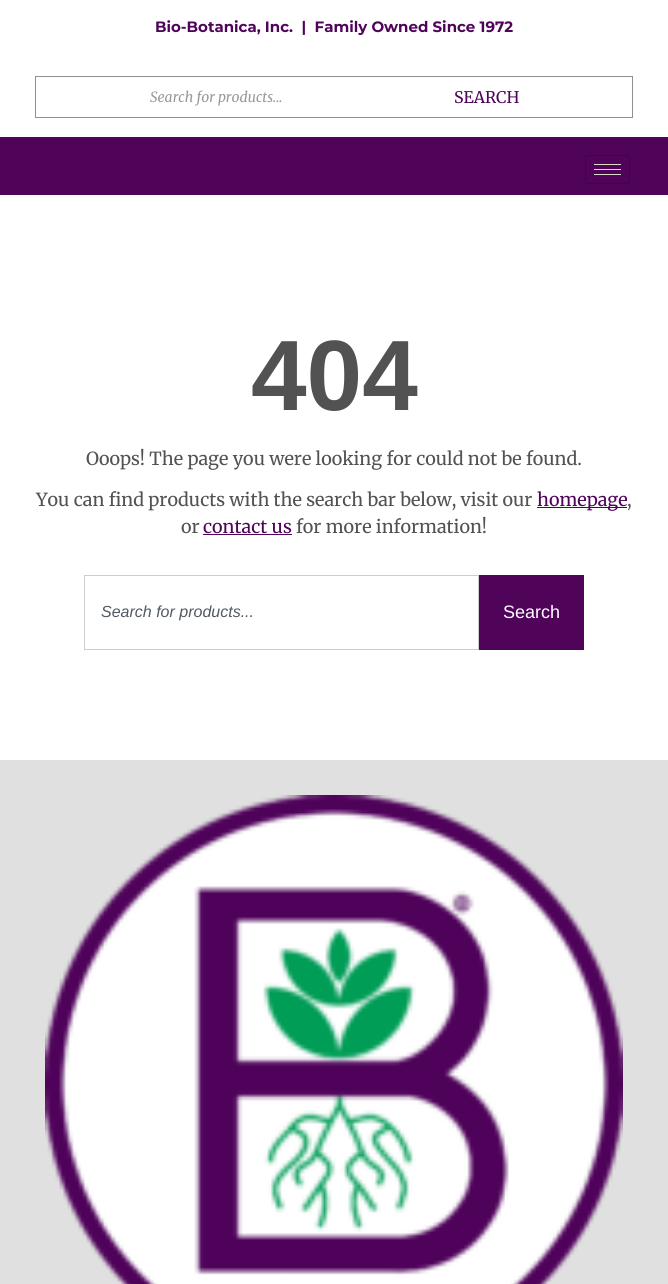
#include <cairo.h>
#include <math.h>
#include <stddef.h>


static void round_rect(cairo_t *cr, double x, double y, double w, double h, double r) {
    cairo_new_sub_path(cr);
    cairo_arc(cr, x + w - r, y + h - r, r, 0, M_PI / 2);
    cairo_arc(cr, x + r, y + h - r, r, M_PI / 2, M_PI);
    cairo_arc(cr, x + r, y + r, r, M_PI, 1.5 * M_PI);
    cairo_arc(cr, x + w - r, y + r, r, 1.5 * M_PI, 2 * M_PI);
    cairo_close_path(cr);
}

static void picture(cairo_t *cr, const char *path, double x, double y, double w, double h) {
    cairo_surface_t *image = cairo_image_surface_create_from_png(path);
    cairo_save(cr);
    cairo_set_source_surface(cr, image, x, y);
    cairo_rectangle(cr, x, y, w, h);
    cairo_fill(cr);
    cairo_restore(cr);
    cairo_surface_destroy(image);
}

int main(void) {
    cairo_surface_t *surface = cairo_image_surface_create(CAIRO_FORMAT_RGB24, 668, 1284);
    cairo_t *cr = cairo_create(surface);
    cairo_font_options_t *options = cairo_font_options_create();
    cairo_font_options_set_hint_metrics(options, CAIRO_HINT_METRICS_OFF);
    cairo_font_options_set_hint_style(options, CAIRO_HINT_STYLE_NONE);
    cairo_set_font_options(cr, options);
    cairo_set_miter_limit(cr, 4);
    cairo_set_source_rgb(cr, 1, 1, 1);
    cairo_paint(cr);
    cairo_select_font_face(cr, "Montserrat", CAIRO_FONT_SLANT_NORMAL, CAIRO_FONT_WEIGHT_BOLD);
    cairo_set_font_size(cr, 15);
    cairo_set_source_rgb(cr, 0.31, 0.016, 0.353);
    cairo_move_to(cr, 155, 32);
    cairo_show_text(cr, "Bio-Botanica, Inc.  |  Family Owned Since 1972");
    cairo_rectangle(cr, 35.5, 76.5, 597, 41);
    cairo_set_source_rgb(cr, 0.561, 0.561, 0.561);
    cairo_set_line_width(cr, 1);
    cairo_stroke(cr);
    cairo_select_font_face(cr, "Merriweather", CAIRO_FONT_SLANT_ITALIC, CAIRO_FONT_WEIGHT_NORMAL);
    cairo_set_font_size(cr, 14);
    cairo_set_source_rgb(cr, 0.6, 0.6, 0.6);
    cairo_move_to(cr, 150, 102);
    cairo_show_text(cr, "Search for products...");
    cairo_select_font_face(cr, "Merriweather", CAIRO_FONT_SLANT_NORMAL, CAIRO_FONT_WEIGHT_NORMAL);
    cairo_set_font_size(cr, 16);
    cairo_set_source_rgb(cr, 0.31, 0.016, 0.353);
    cairo_move_to(cr, 454, 103);
    cairo_show_text(cr, "SEARCH");
    cairo_rectangle(cr, 0, 137, 668, 58);
    cairo_fill(cr);
    round_rect(cr, 585.5, 155.5, 44, 28, 2.5);
    cairo_set_source_rgb(cr, 0.247, 0.012, 0.282);
    cairo_stroke(cr);
    cairo_set_source_rgb(cr, 0.859, 0.855, 0.765);
    cairo_rectangle(cr, 594, 164, 27, 1);
    cairo_fill(cr);
    cairo_rectangle(cr, 594, 169, 27, 1);
    cairo_fill(cr);
    cairo_rectangle(cr, 594, 174, 27, 1);
    cairo_fill(cr);
    cairo_select_font_face(cr, "Liberation Sans", CAIRO_FONT_SLANT_NORMAL, CAIRO_FONT_WEIGHT_BOLD);
    cairo_set_font_size(cr, 100);
    cairo_set_source_rgb(cr, 0.322, 0.322, 0.322);
    cairo_move_to(cr, 251, 410);
    cairo_show_text(cr, "404");
    cairo_select_font_face(cr, "Merriweather", CAIRO_FONT_SLANT_NORMAL, CAIRO_FONT_WEIGHT_NORMAL);
    cairo_set_font_size(cr, 18);
    cairo_move_to(cr, 86, 465);
    cairo_show_text(cr, "Ooops! The page you were looking for could not be found.");
    cairo_move_to(cr, 36, 506);
    cairo_show_text(cr, "You can find products with the search bar below, visit our");
    cairo_set_source_rgb(cr, 0.31, 0.016, 0.353);
    cairo_rectangle(cr, 537, 507, 90, 1);
    cairo_fill(cr);
    cairo_move_to(cr, 537, 506);
    cairo_show_text(cr, "homepage");
    cairo_set_source_rgb(cr, 0.322, 0.322, 0.322);
    cairo_move_to(cr, 627, 506);
    cairo_show_text(cr, ",");
    cairo_move_to(cr, 181, 533);
    cairo_show_text(cr, "or");
    cairo_set_source_rgb(cr, 0.31, 0.016, 0.353);
    cairo_move_to(cr, 203, 533);
    cairo_show_text(cr, "contact us");
    cairo_rectangle(cr, 203, 534, 89, 1);
    cairo_fill(cr);
    cairo_set_source_rgb(cr, 0.322, 0.322, 0.322);
    cairo_move_to(cr, 296, 533);
    cairo_show_text(cr, "for more information!");
    cairo_rectangle(cr, 84.5, 575.5, 394, 74);
    cairo_set_source_rgb(cr, 0.804, 0.804, 0.804);
    cairo_stroke(cr);
    cairo_select_font_face(cr, "Liberation Sans", CAIRO_FONT_SLANT_ITALIC, CAIRO_FONT_WEIGHT_NORMAL);
    cairo_set_font_size(cr, 16);
    cairo_set_source_rgb(cr, 0.318, 0.349, 0.384);
    cairo_move_to(cr, 101, 617);
    cairo_show_text(cr, "Search for products...");
    cairo_set_source_rgb(cr, 0.31, 0.016, 0.353);
    cairo_rectangle(cr, 479, 575, 105, 75);
    cairo_fill(cr);
    cairo_select_font_face(cr, "Liberation Sans", CAIRO_FONT_SLANT_NORMAL, CAIRO_FONT_WEIGHT_NORMAL);
    cairo_set_font_size(cr, 18);
    cairo_set_source_rgb(cr, 1, 1, 1);
    cairo_move_to(cr, 503, 618);
    cairo_show_text(cr, "Search");
    cairo_set_source_rgb(cr, 0.878, 0.878, 0.878);
    cairo_rectangle(cr, 0, 760, 668, 524);
    cairo_fill(cr);
    picture(cr, "img1.png", 45, 795, 578, 489);
    cairo_surface_write_to_png(surface, "page.png");
    cairo_font_options_destroy(options);
    cairo_destroy(cr);
    cairo_surface_destroy(surface);
    return 0;
}
